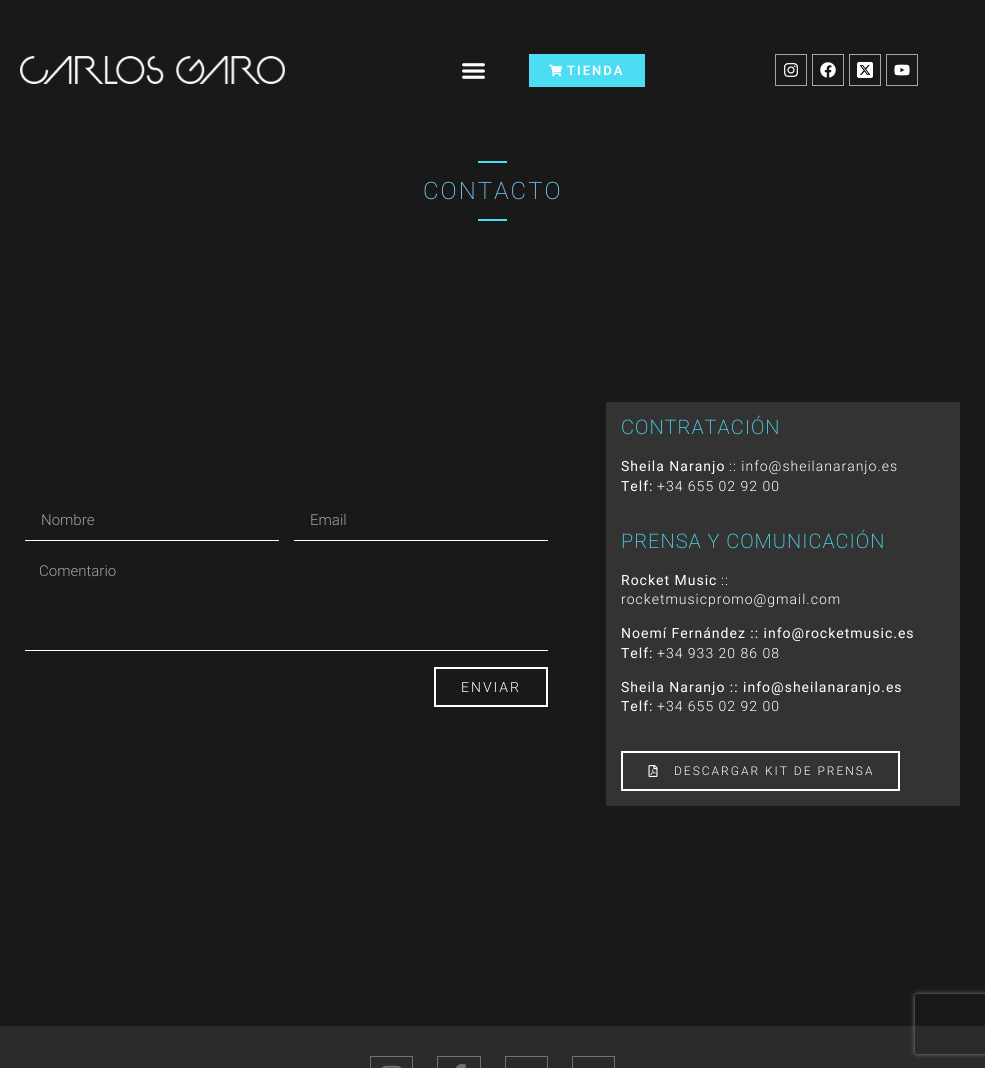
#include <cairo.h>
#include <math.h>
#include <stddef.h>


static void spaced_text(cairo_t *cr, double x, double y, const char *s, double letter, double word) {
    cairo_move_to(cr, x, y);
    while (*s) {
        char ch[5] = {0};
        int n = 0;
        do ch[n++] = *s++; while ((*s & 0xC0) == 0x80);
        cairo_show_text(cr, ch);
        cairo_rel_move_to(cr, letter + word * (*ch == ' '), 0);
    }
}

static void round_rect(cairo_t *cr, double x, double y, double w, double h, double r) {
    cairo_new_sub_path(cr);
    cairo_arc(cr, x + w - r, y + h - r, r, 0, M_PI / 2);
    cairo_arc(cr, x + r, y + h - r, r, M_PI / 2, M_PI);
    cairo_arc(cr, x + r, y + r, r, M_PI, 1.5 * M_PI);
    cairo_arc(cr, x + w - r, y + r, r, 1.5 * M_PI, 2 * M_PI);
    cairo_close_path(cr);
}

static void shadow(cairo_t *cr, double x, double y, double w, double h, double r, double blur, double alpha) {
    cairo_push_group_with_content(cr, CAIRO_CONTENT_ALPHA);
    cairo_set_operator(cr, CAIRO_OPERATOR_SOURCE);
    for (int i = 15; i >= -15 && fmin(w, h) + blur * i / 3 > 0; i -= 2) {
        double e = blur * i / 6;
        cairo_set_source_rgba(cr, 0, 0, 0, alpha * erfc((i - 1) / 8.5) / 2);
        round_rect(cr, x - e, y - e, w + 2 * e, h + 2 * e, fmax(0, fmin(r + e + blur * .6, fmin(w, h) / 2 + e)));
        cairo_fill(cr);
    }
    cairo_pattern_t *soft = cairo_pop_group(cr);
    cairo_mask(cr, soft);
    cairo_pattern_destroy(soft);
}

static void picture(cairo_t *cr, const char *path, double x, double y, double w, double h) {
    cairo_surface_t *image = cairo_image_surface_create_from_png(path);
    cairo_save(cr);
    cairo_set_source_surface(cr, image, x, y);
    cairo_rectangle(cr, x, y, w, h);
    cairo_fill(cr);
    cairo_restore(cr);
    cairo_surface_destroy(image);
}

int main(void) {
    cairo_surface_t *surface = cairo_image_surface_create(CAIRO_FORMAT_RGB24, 985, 1068);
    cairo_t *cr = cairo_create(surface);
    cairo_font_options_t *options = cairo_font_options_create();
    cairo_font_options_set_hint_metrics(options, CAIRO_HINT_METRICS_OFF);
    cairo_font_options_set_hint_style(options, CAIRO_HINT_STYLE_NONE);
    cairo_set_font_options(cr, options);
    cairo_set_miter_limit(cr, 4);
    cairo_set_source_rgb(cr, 0.098, 0.098, 0.098);
    cairo_paint(cr);
    picture(cr, "img1.png", 20, 56, 265, 28);
    picture(cr, "img2.png", 462, 63, 23, 16);
    cairo_set_source_rgb(cr, 0.298, 0.867, 0.953);
    cairo_rectangle(cr, 529, 54, 116, 33);
    cairo_fill(cr);
    picture(cr, "img3.png", 549, 64, 13, 13);
    cairo_select_font_face(cr, "Roboto SemiBold", CAIRO_FONT_SLANT_NORMAL, CAIRO_FONT_WEIGHT_NORMAL);
    cairo_set_font_size(cr, 13);
    cairo_set_source_rgb(cr, 1, 1, 1);
    spaced_text(cr, 567, 75, "TIENDA", 2, 0);
    cairo_rectangle(cr, 775.5, 54.5, 31, 31);
    cairo_set_source_rgb(cr, 0.647, 0.647, 0.647);
    cairo_set_line_width(cr, 1);
    cairo_stroke(cr);
    picture(cr, "img4.png", 784, 63, 14, 14);
    cairo_rectangle(cr, 812.5, 54.5, 31, 31);
    cairo_stroke(cr);
    picture(cr, "img5.png", 820, 62, 16, 16);
    cairo_rectangle(cr, 849.5, 54.5, 31, 31);
    cairo_stroke(cr);
    picture(cr, "img6.png", 857, 62, 16, 16);
    cairo_rectangle(cr, 886.5, 54.5, 31, 31);
    cairo_stroke(cr);
    picture(cr, "img7.png", 894, 64, 16, 12);
    cairo_set_source_rgb(cr, 0.298, 0.867, 0.953);
    cairo_rectangle(cr, 478, 161, 29, 2);
    cairo_fill(cr);
    cairo_select_font_face(cr, "Roboto ExtraLight", CAIRO_FONT_SLANT_NORMAL, CAIRO_FONT_WEIGHT_NORMAL);
    cairo_set_font_size(cr, 24);
    cairo_set_source_rgb(cr, 0.431, 0.757, 0.894);
    spaced_text(cr, 423, 199, "CONTACTO", 2, 0);
    cairo_set_source_rgb(cr, 0.298, 0.867, 0.953);
    cairo_rectangle(cr, 478, 219, 29, 2);
    cairo_fill(cr);
    cairo_set_source_rgb(cr, 1, 1, 1);
    cairo_rectangle(cr, 25, 540, 254, 1);
    cairo_fill(cr);
    cairo_select_font_face(cr, "Roboto Light", CAIRO_FONT_SLANT_NORMAL, CAIRO_FONT_WEIGHT_NORMAL);
    cairo_set_font_size(cr, 15);
    cairo_set_source_rgb(cr, 0.639, 0.639, 0.639);
    cairo_move_to(cr, 41, 525);
    cairo_show_text(cr, "Nombre");
    cairo_set_source_rgb(cr, 1, 1, 1);
    cairo_rectangle(cr, 294, 540, 254, 1);
    cairo_fill(cr);
    cairo_set_source_rgb(cr, 0.639, 0.639, 0.639);
    cairo_move_to(cr, 310, 525);
    cairo_show_text(cr, "Email");
    cairo_set_source_rgb(cr, 1, 1, 1);
    cairo_rectangle(cr, 25, 650, 523, 1);
    cairo_fill(cr);
    cairo_set_source_rgb(cr, 0.639, 0.639, 0.639);
    cairo_move_to(cr, 39, 576);
    cairo_show_text(cr, "Comentario");
    cairo_rectangle(cr, 435, 668, 112, 38);
    cairo_set_source_rgb(cr, 1, 1, 1);
    cairo_set_line_width(cr, 2);
    cairo_stroke(cr);
    cairo_set_font_size(cr, 14);
    spaced_text(cr, 461, 692, "ENVIAR", 2, 0);
    cairo_set_source_rgb(cr, 0.169, 0.169, 0.169);
    cairo_rectangle(cr, 0, 1026, 985, 42);
    cairo_fill(cr);
    cairo_save(cr);
    cairo_set_fill_rule(cr, CAIRO_FILL_RULE_EVEN_ODD);
    cairo_new_path(cr);
    cairo_move_to(cr, 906, 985);
    cairo_line_to(cr, 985, 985);
    cairo_line_to(cr, 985, 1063);
    cairo_line_to(cr, 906, 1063);
    cairo_close_path(cr);
    cairo_move_to(cr, 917, 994);
    cairo_line_to(cr, 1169, 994);
    cairo_curve_to(cr, 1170, 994, 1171, 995, 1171, 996);
    cairo_line_to(cr, 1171, 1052);
    cairo_curve_to(cr, 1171, 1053, 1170, 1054, 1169, 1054);
    cairo_line_to(cr, 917, 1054);
    cairo_curve_to(cr, 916, 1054, 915, 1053, 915, 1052);
    cairo_line_to(cr, 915, 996);
    cairo_curve_to(cr, 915, 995, 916, 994, 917, 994);
    cairo_close_path(cr);
    cairo_clip(cr);
    cairo_set_source_rgb(cr, 0.502, 0.502, 0.502);
    shadow(cr, 915, 994, 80, 60, 2, 2.5, 1);
    cairo_restore(cr);
    cairo_set_source_rgb(cr, 0.2, 0.2, 0.2);
    cairo_rectangle(cr, 606, 402, 354, 404);
    cairo_fill(cr);
    cairo_select_font_face(cr, "Roboto ExtraLight", CAIRO_FONT_SLANT_NORMAL, CAIRO_FONT_WEIGHT_NORMAL);
    cairo_set_font_size(cr, 20);
    cairo_set_source_rgb(cr, 0.298, 0.867, 0.953);
    spaced_text(cr, 621, 434, "CONTRATACIÓN", 1, 0);
    cairo_select_font_face(cr, "Roboto", CAIRO_FONT_SLANT_NORMAL, CAIRO_FONT_WEIGHT_NORMAL);
    cairo_set_font_size(cr, 14);
    cairo_set_source_rgb(cr, 1, 1, 1);
    spaced_text(cr, 621, 471, "Sheila Naranjo", 1, 0);
    cairo_select_font_face(cr, "Roboto Light", CAIRO_FONT_SLANT_NORMAL, CAIRO_FONT_WEIGHT_NORMAL);
    spaced_text(cr, 729, 471, ":: info@sheilanaranjo.es", 1, 0);
    cairo_select_font_face(cr, "Roboto", CAIRO_FONT_SLANT_NORMAL, CAIRO_FONT_WEIGHT_NORMAL);
    spaced_text(cr, 621, 491, "Telf:", 1, 0);
    cairo_select_font_face(cr, "Roboto Light", CAIRO_FONT_SLANT_NORMAL, CAIRO_FONT_WEIGHT_NORMAL);
    spaced_text(cr, 657, 491, "+34 655 02 92 00", 1, 0);
    cairo_select_font_face(cr, "Roboto ExtraLight", CAIRO_FONT_SLANT_NORMAL, CAIRO_FONT_WEIGHT_NORMAL);
    cairo_set_font_size(cr, 20);
    cairo_set_source_rgb(cr, 0.298, 0.867, 0.953);
    spaced_text(cr, 621, 548, "PRENSA Y COMUNICACIÓN", 1, 0);
    cairo_select_font_face(cr, "Roboto", CAIRO_FONT_SLANT_NORMAL, CAIRO_FONT_WEIGHT_NORMAL);
    cairo_set_font_size(cr, 14);
    cairo_set_source_rgb(cr, 1, 1, 1);
    spaced_text(cr, 621, 585, "Rocket Music", 1, 0);
    cairo_select_font_face(cr, "Roboto Light", CAIRO_FONT_SLANT_NORMAL, CAIRO_FONT_WEIGHT_NORMAL);
    spaced_text(cr, 721, 585, "::", 1, 0);
    spaced_text(cr, 621, 604, "rocketmusicpromo@gmail.com", 1, 0);
    cairo_select_font_face(cr, "Roboto", CAIRO_FONT_SLANT_NORMAL, CAIRO_FONT_WEIGHT_NORMAL);
    spaced_text(cr, 621, 638, "Noemí Fernández :: info@rocketmusic.es", 1, 0);
    spaced_text(cr, 621, 658, "Telf:", 1, 0);
    cairo_select_font_face(cr, "Roboto Light", CAIRO_FONT_SLANT_NORMAL, CAIRO_FONT_WEIGHT_NORMAL);
    spaced_text(cr, 657, 658, "+34 933 20 86 08", 1, 0);
    cairo_select_font_face(cr, "Roboto", CAIRO_FONT_SLANT_NORMAL, CAIRO_FONT_WEIGHT_NORMAL);
    spaced_text(cr, 621, 692, "Sheila Naranjo :: info@sheilanaranjo.es", 1, 0);
    spaced_text(cr, 621, 711, "Telf:", 1, 0);
    cairo_select_font_face(cr, "Roboto Light", CAIRO_FONT_SLANT_NORMAL, CAIRO_FONT_WEIGHT_NORMAL);
    spaced_text(cr, 657, 711, "+34 655 02 92 00", 1, 0);
    cairo_rectangle(cr, 622, 752, 277, 38);
    cairo_stroke(cr);
    picture(cr, "img8.png", 648, 765, 10, 12);
    cairo_set_font_size(cr, 12);
    spaced_text(cr, 674, 775, "DESCARGAR KIT DE PRENSA", 2, 0);
    cairo_rectangle(cr, 370.5, 1056.5, 42, 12);
    cairo_set_source_rgb(cr, 0.412, 0.447, 0.49);
    cairo_set_line_width(cr, 1);
    cairo_stroke(cr);
    picture(cr, "img9.png", 381, 1065, 21, 3);
    cairo_rectangle(cr, 437.5, 1056.5, 43, 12);
    cairo_stroke(cr);
    picture(cr, "img10.png", 456, 1064, 10, 4);
    cairo_rectangle(cr, 505.5, 1056.5, 42, 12);
    cairo_stroke(cr);
    cairo_rectangle(cr, 572.5, 1056.5, 42, 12);
    cairo_stroke(cr);
    cairo_surface_write_to_png(surface, "page.png");
    cairo_font_options_destroy(options);
    cairo_destroy(cr);
    cairo_surface_destroy(surface);
    return 0;
}
